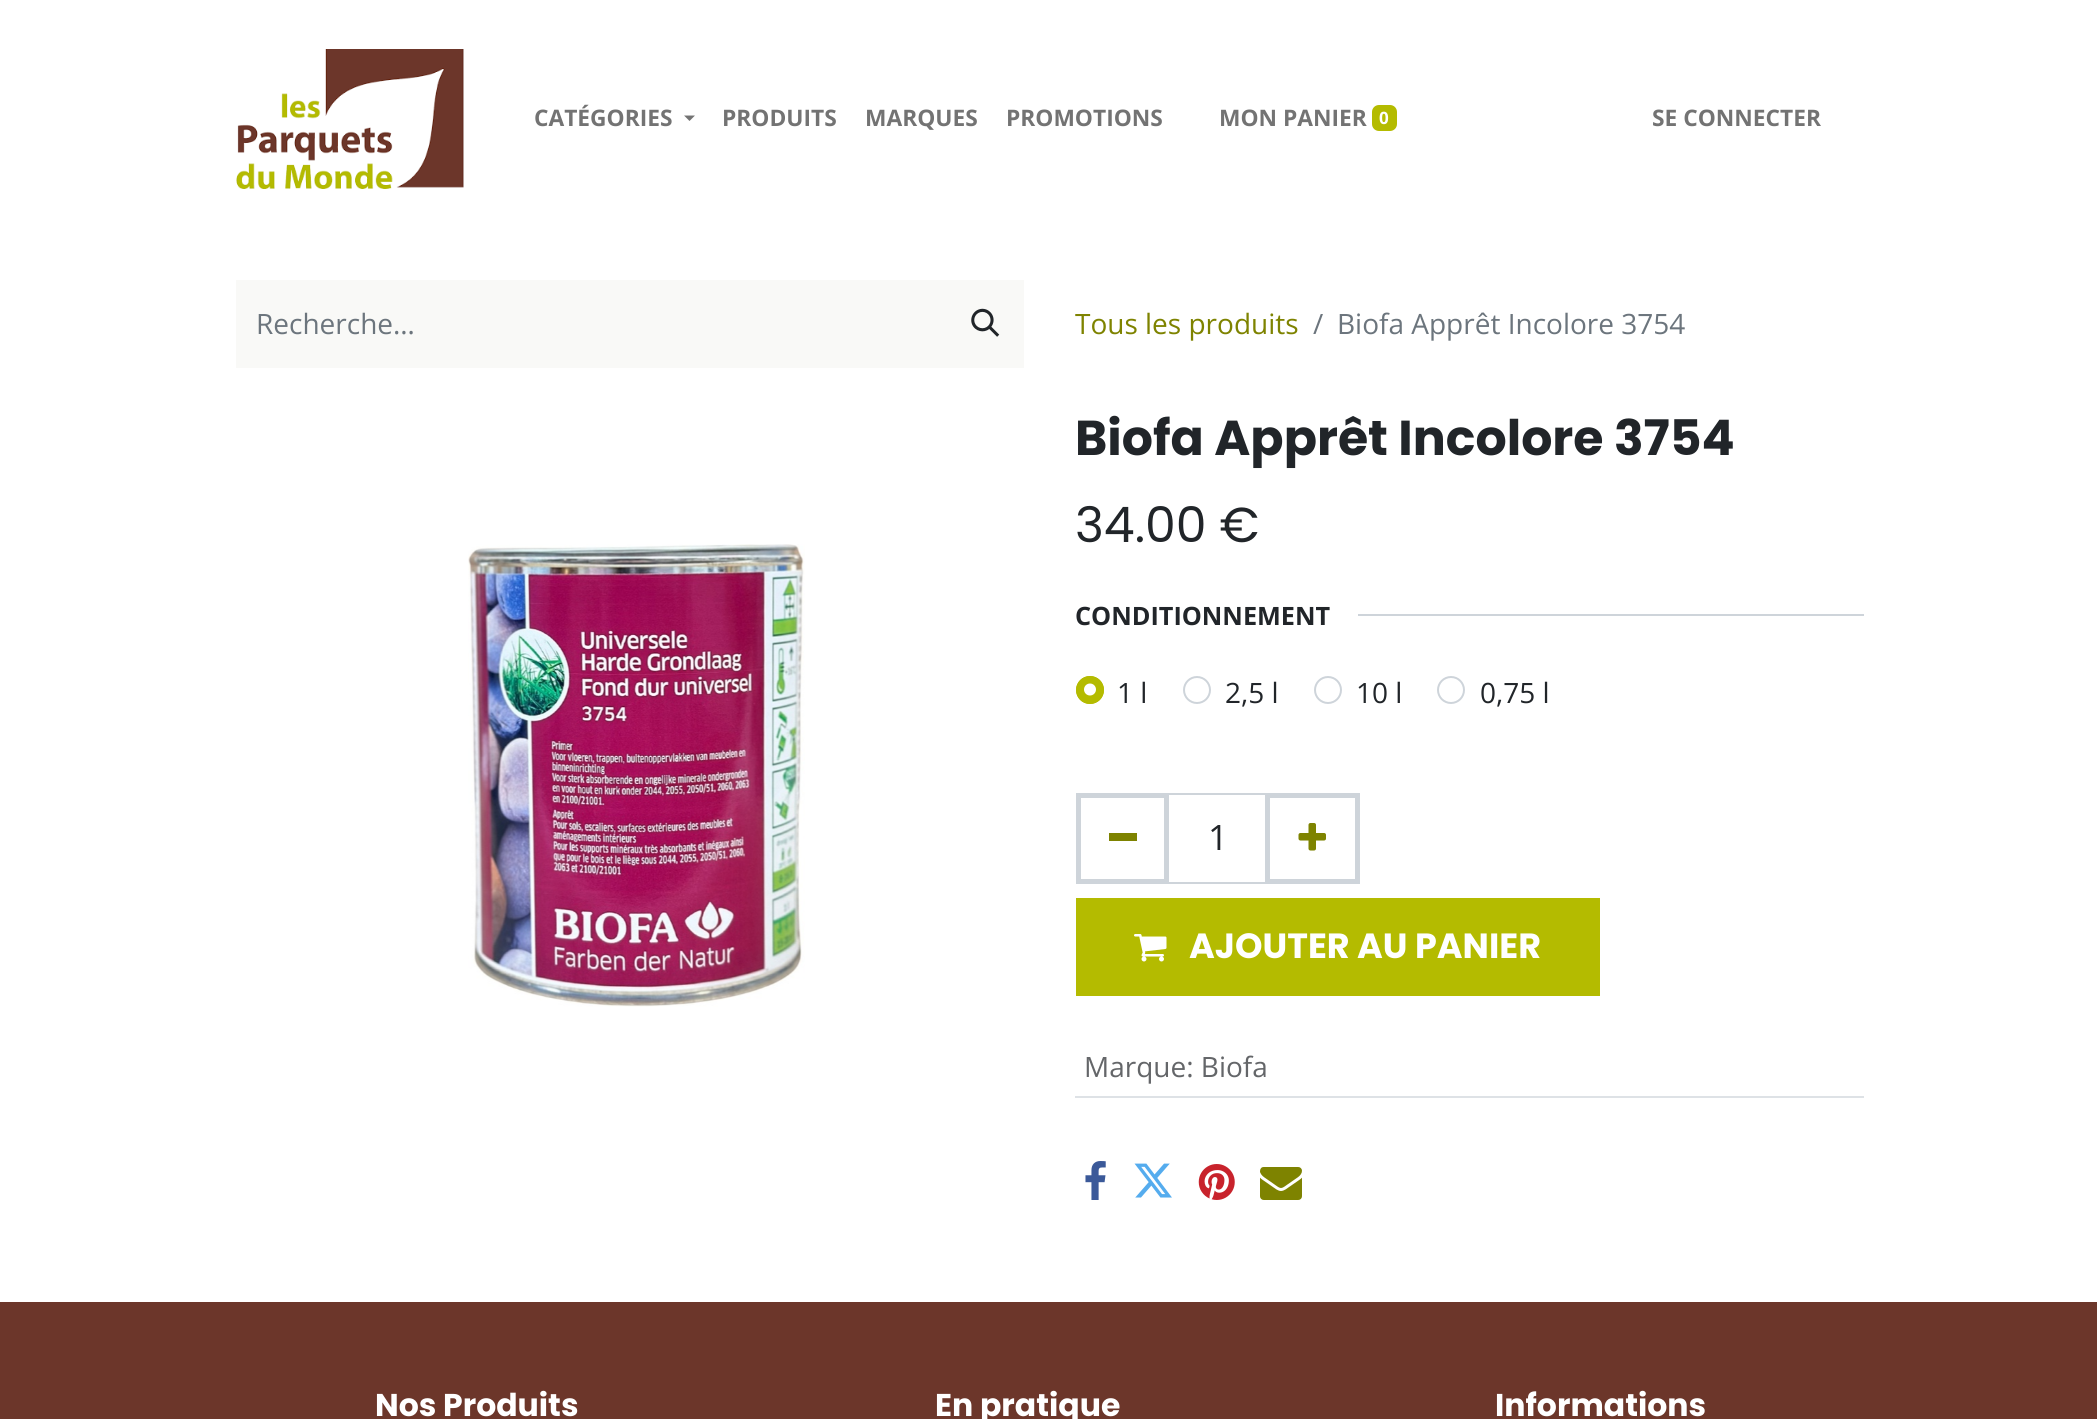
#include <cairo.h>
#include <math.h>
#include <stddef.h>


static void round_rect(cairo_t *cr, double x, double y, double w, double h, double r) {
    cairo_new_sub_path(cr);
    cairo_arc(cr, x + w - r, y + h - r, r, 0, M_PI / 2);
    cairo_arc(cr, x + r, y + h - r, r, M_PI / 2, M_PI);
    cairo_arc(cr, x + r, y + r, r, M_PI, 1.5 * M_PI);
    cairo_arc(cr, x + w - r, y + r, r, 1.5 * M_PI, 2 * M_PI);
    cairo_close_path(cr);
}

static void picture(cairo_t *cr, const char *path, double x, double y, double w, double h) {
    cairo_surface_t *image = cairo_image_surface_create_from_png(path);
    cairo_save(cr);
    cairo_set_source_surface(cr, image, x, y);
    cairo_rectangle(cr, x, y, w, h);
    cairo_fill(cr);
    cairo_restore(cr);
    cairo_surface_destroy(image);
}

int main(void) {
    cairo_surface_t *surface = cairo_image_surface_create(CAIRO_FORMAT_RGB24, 2097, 1419);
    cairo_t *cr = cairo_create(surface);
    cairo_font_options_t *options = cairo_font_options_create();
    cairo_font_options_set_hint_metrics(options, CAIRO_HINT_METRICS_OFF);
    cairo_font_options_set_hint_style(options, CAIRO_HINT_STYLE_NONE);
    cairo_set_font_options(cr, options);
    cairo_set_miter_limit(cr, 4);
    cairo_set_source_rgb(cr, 1, 1, 1);
    cairo_paint(cr);
    picture(cr, "img1.png", 236, 49, 228, 140);
    cairo_select_font_face(cr, "Open Sans", CAIRO_FONT_SLANT_NORMAL, CAIRO_FONT_WEIGHT_BOLD);
    cairo_set_font_size(cr, 22.75);
    cairo_set_source_rgb(cr, 0.451, 0.451, 0.451);
    cairo_move_to(cr, 534, 126);
    cairo_show_text(cr, "CATÉGORIES");
    cairo_new_path(cr);
    cairo_move_to(cr, 684, 115.5);
    cairo_line_to(cr, 695, 115.5);
    cairo_line_to(cr, 689.5, 121);
    cairo_close_path(cr);
    cairo_fill(cr);
    cairo_move_to(cr, 722, 126);
    cairo_show_text(cr, "PRODUITS");
    cairo_move_to(cr, 865, 126);
    cairo_show_text(cr, "MARQUES");
    cairo_move_to(cr, 1006, 126);
    cairo_show_text(cr, "PROMOTIONS");
    cairo_move_to(cr, 1219, 126);
    cairo_show_text(cr, "MON PANIER");
    cairo_set_source_rgb(cr, 0.706, 0.733, 0);
    round_rect(cr, 1372, 105, 25, 26, 7);
    cairo_fill(cr);
    cairo_set_font_size(cr, 17);
    cairo_set_source_rgb(cr, 1, 1, 1);
    cairo_move_to(cr, 1379, 124);
    cairo_show_text(cr, "0");
    cairo_set_font_size(cr, 22.75);
    cairo_set_source_rgb(cr, 0.451, 0.451, 0.451);
    cairo_move_to(cr, 1652, 126);
    cairo_show_text(cr, "SE CONNECTER");
    cairo_set_source_rgb(cr, 0.976, 0.976, 0.965);
    cairo_rectangle(cr, 236, 280, 788, 88);
    cairo_fill(cr);
    cairo_select_font_face(cr, "Open Sans", CAIRO_FONT_SLANT_NORMAL, CAIRO_FONT_WEIGHT_NORMAL);
    cairo_set_font_size(cr, 28);
    cairo_set_source_rgb(cr, 0.424, 0.459, 0.49);
    cairo_move_to(cr, 256, 334);
    cairo_show_text(cr, "Recherche…");
    picture(cr, "img2.png", 971, 308, 29, 29);
    cairo_set_source_rgb(cr, 0.494, 0.514, 0);
    cairo_move_to(cr, 1075, 334);
    cairo_show_text(cr, "Tous les produits");
    cairo_set_source_rgb(cr, 0.424, 0.459, 0.49);
    cairo_move_to(cr, 1313, 334);
    cairo_show_text(cr, "/");
    cairo_move_to(cr, 1337, 334);
    cairo_show_text(cr, "Biofa Apprêt Incolore 3754");
    picture(cr, "img3.png", 468, 544, 337, 463);
    cairo_select_font_face(cr, "Poppins", CAIRO_FONT_SLANT_NORMAL, CAIRO_FONT_WEIGHT_BOLD);
    cairo_set_font_size(cr, 49);
    cairo_set_source_rgb(cr, 0.129, 0.145, 0.161);
    cairo_move_to(cr, 1075, 455);
    cairo_show_text(cr, "Biofa Apprêt Incolore 3754");
    cairo_select_font_face(cr, "Poppins", CAIRO_FONT_SLANT_NORMAL, CAIRO_FONT_WEIGHT_NORMAL);
    cairo_move_to(cr, 1075, 542);
    cairo_show_text(cr, "34.00 €");
    cairo_select_font_face(cr, "Open Sans", CAIRO_FONT_SLANT_NORMAL, CAIRO_FONT_WEIGHT_BOLD);
    cairo_set_font_size(cr, 25.25);
    cairo_move_to(cr, 1075, 625);
    cairo_show_text(cr, "CONDITIONNEMENT");
    cairo_set_source_rgb(cr, 0.808, 0.831, 0.855);
    cairo_rectangle(cr, 1358, 614, 506, 2);
    cairo_fill(cr);
    cairo_set_source_rgb(cr, 0.706, 0.733, 0);
    cairo_arc(cr, 1090, 690, 14, 0, 2 * M_PI);
    cairo_fill(cr);
    cairo_set_source_rgb(cr, 1, 1, 1);
    cairo_arc(cr, 1090, 689.5, 6, 0, 2 * M_PI);
    cairo_fill(cr);
    cairo_arc(cr, 1090, 690, 13, 0, 2 * M_PI);
    cairo_set_source_rgb(cr, 0.706, 0.733, 0);
    cairo_stroke(cr);
    cairo_select_font_face(cr, "Open Sans", CAIRO_FONT_SLANT_NORMAL, CAIRO_FONT_WEIGHT_NORMAL);
    cairo_set_font_size(cr, 28);
    cairo_set_source_rgb(cr, 0.129, 0.145, 0.161);
    cairo_move_to(cr, 1117, 703);
    cairo_show_text(cr, "1 l");
    cairo_new_path(cr);
    cairo_arc(cr, 1197, 690, 13, 0, 2 * M_PI);
    cairo_set_source_rgb(cr, 0.808, 0.831, 0.855);
    cairo_stroke(cr);
    cairo_set_source_rgb(cr, 0.129, 0.145, 0.161);
    cairo_move_to(cr, 1225, 703);
    cairo_show_text(cr, "2,5 l");
    cairo_new_path(cr);
    cairo_arc(cr, 1328, 690, 13, 0, 2 * M_PI);
    cairo_set_source_rgb(cr, 0.808, 0.831, 0.855);
    cairo_stroke(cr);
    cairo_set_source_rgb(cr, 0.129, 0.145, 0.161);
    cairo_move_to(cr, 1356, 703);
    cairo_show_text(cr, "10 l");
    cairo_new_path(cr);
    cairo_arc(cr, 1451, 690, 13, 0, 2 * M_PI);
    cairo_set_source_rgb(cr, 0.808, 0.831, 0.855);
    cairo_stroke(cr);
    cairo_set_source_rgb(cr, 0.129, 0.145, 0.161);
    cairo_move_to(cr, 1480, 703);
    cairo_show_text(cr, "0,75 l");
    cairo_rectangle(cr, 1168, 794, 98, 89);
    cairo_set_source_rgb(cr, 0.808, 0.831, 0.855);
    cairo_stroke(cr);
    cairo_rectangle(cr, 1078.5, 795.5, 88, 86);
    cairo_set_line_width(cr, 5);
    cairo_stroke(cr);
    cairo_set_source_rgb(cr, 0.494, 0.514, 0);
    cairo_rectangle(cr, 1109, 833, 28, 8);
    cairo_fill(cr);
    cairo_set_font_size(cr, 35);
    cairo_set_source_rgb(cr, 0.129, 0.145, 0.161);
    cairo_move_to(cr, 1208, 850);
    cairo_show_text(cr, "1");
    cairo_rectangle(cr, 1267.5, 795.5, 90, 86);
    cairo_set_source_rgb(cr, 0.808, 0.831, 0.855);
    cairo_stroke(cr);
    picture(cr, "img4.png", 1298, 823, 28, 28);
    cairo_set_source_rgb(cr, 0.706, 0.733, 0);
    cairo_rectangle(cr, 1076, 898, 524, 98);
    cairo_fill(cr);
    picture(cr, "img5.png", 1134, 934, 33, 28);
    cairo_select_font_face(cr, "Poppins", CAIRO_FONT_SLANT_NORMAL, CAIRO_FONT_WEIGHT_BOLD);
    cairo_set_source_rgb(cr, 1, 1, 1);
    cairo_move_to(cr, 1189, 958);
    cairo_show_text(cr, "AJOUTER AU PANIER");
    cairo_set_source_rgb(cr, 0.871, 0.886, 0.902);
    cairo_rectangle(cr, 1075, 1096, 789, 2);
    cairo_fill(cr);
    cairo_select_font_face(cr, "Open Sans", CAIRO_FONT_SLANT_NORMAL, CAIRO_FONT_WEIGHT_NORMAL);
    cairo_set_font_size(cr, 28);
    cairo_set_source_rgb(cr, 0.392, 0.4, 0.412);
    cairo_move_to(cr, 1084, 1077);
    cairo_show_text(cr, "Marque: Biofa");
    picture(cr, "img6.png", 1085, 1161, 21, 39);
    picture(cr, "img7.png", 1134, 1163, 38, 35);
    picture(cr, "img8.png", 1198, 1164, 37, 36);
    picture(cr, "img9.png", 1260, 1167, 42, 33);
    cairo_set_source_rgb(cr, 0.424, 0.212, 0.165);
    cairo_rectangle(cr, 0, 1302, 2097, 117);
    cairo_fill(cr);
    cairo_select_font_face(cr, "Poppins", CAIRO_FONT_SLANT_NORMAL, CAIRO_FONT_WEIGHT_BOLD);
    cairo_set_font_size(cr, 31.5);
    cairo_set_source_rgb(cr, 1, 1, 1);
    cairo_move_to(cr, 375, 1416);
    cairo_show_text(cr, "Nos Produits");
    cairo_move_to(cr, 935, 1416);
    cairo_show_text(cr, "En pratique");
    cairo_move_to(cr, 1495, 1416);
    cairo_show_text(cr, "Informations");
    cairo_surface_write_to_png(surface, "page.png");
    cairo_font_options_destroy(options);
    cairo_destroy(cr);
    cairo_surface_destroy(surface);
    return 0;
}
